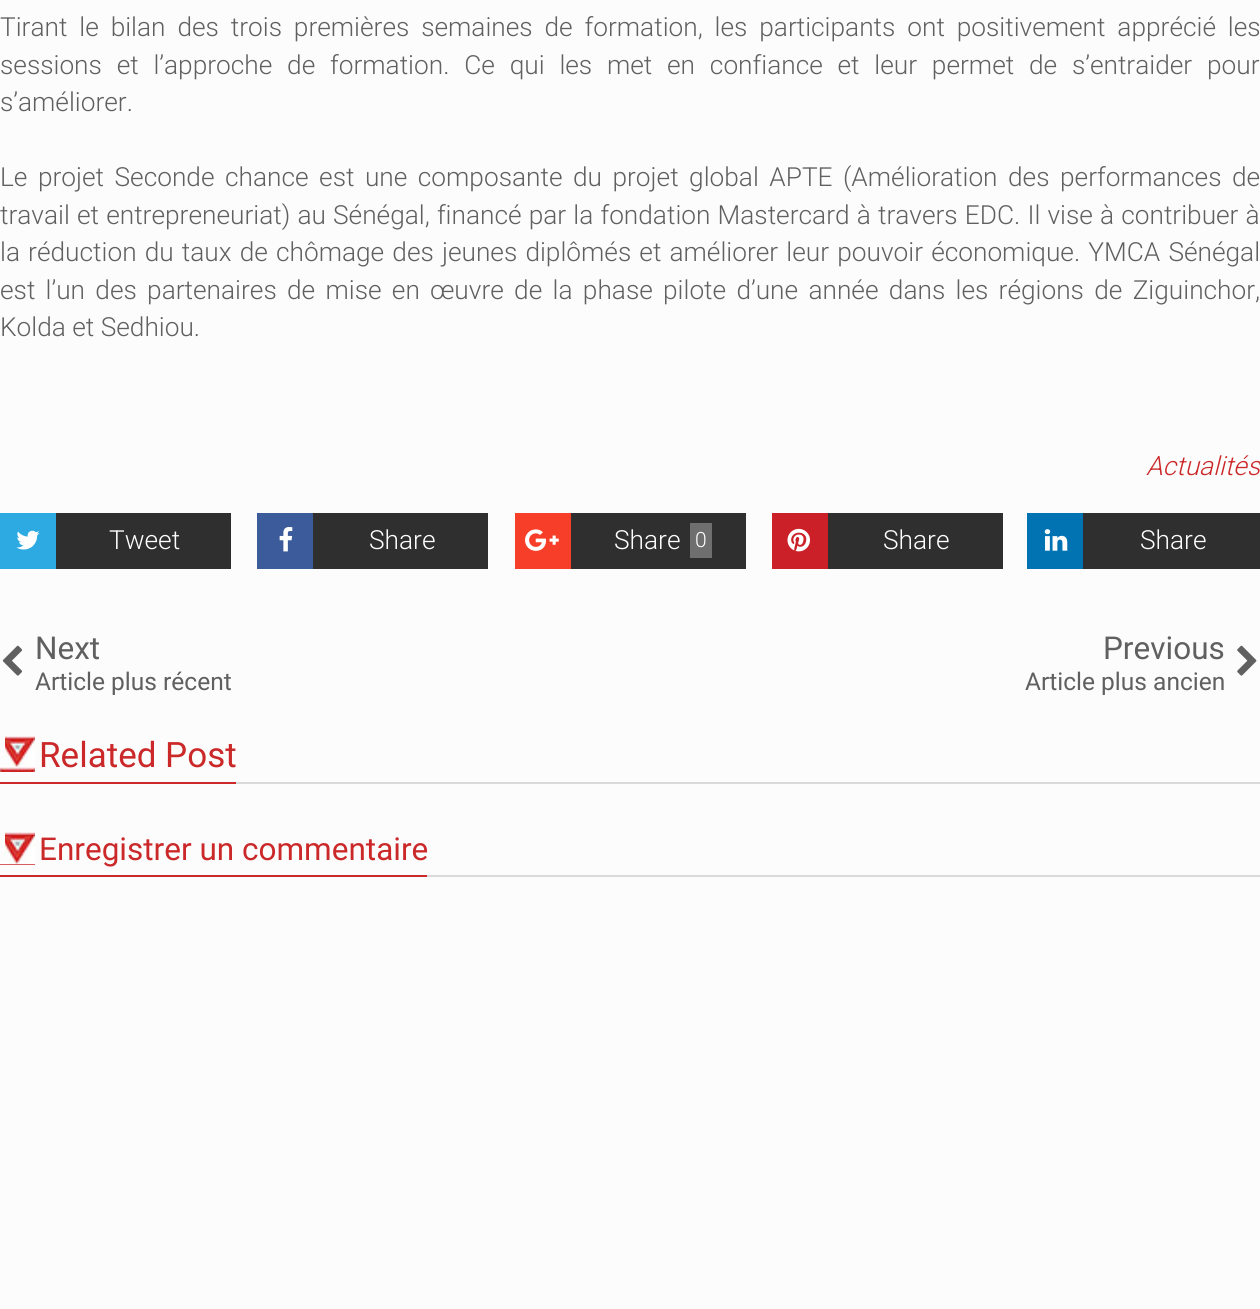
#include <cairo.h>
#include <math.h>
#include <stddef.h>


static void spaced_text(cairo_t *cr, double x, double y, const char *s, double letter, double word) {
    cairo_move_to(cr, x, y);
    while (*s) {
        char ch[5] = {0};
        int n = 0;
        do ch[n++] = *s++; while ((*s & 0xC0) == 0x80);
        cairo_show_text(cr, ch);
        cairo_rel_move_to(cr, letter + word * (*ch == ' '), 0);
    }
}

static void picture(cairo_t *cr, const char *path, double x, double y, double w, double h) {
    cairo_surface_t *image = cairo_image_surface_create_from_png(path);
    cairo_save(cr);
    cairo_set_source_surface(cr, image, x, y);
    cairo_rectangle(cr, x, y, w, h);
    cairo_fill(cr);
    cairo_restore(cr);
    cairo_surface_destroy(image);
}

int main(void) {
    cairo_surface_t *surface = cairo_image_surface_create(CAIRO_FORMAT_RGB24, 1260, 1309);
    cairo_t *cr = cairo_create(surface);
    cairo_font_options_t *options = cairo_font_options_create();
    cairo_font_options_set_hint_metrics(options, CAIRO_HINT_METRICS_OFF);
    cairo_font_options_set_hint_style(options, CAIRO_HINT_STYLE_NONE);
    cairo_set_font_options(cr, options);
    cairo_set_miter_limit(cr, 4);
    cairo_set_source_rgb(cr, 0.988, 0.988, 0.988);
    cairo_paint(cr);
    cairo_select_font_face(cr, "Roboto Light", CAIRO_FONT_SLANT_NORMAL, CAIRO_FONT_WEIGHT_NORMAL);
    cairo_set_font_size(cr, 26.25);
    cairo_set_source_rgb(cr, 0.376, 0.376, 0.376);
    spaced_text(cr, 0, 36, "Tirant le bilan des trois premières semaines de formation, les participants ont positivement apprécié les", 0, 5.5);
    spaced_text(cr, 0, 74, "sessions et l’approche de formation. Ce qui les met en confiance et leur permet de s’entraider pour", 0, 8.4);
    cairo_move_to(cr, 0, 111);
    cairo_show_text(cr, "s’améliorer.");
    spaced_text(cr, 0, 186, "Le projet Seconde chance est une composante du projet global APTE (Amélioration des performances de", 0, 4.1);
    spaced_text(cr, 0, 224, "travail et entrepreneuriat) au Sénégal, financé par la fondation Mastercard à travers EDC. Il vise à contribuer à", 0, 0.75);
    spaced_text(cr, 0, 261, "la réduction du taux de chômage des jeunes diplômés et améliorer leur pouvoir économique. YMCA Sénégal", 0, 1.75);
    spaced_text(cr, 0, 299, "est l’un des partenaires de mise en œuvre de la phase pilote d’une année dans les régions de Ziguinchor,", 0, 3.9);
    cairo_move_to(cr, 0, 336);
    cairo_show_text(cr, "Kolda et Sedhiou.");
    cairo_select_font_face(cr, "Roboto Light", CAIRO_FONT_SLANT_ITALIC, CAIRO_FONT_WEIGHT_NORMAL);
    cairo_set_source_rgb(cr, 0.796, 0.157, 0.161);
    cairo_move_to(cr, 1146, 475);
    cairo_show_text(cr, "Actualités");
    cairo_set_source_rgb(cr, 0.184, 0.184, 0.184);
    cairo_rectangle(cr, 56, 513, 175, 56);
    cairo_fill(cr);
    cairo_set_source_rgb(cr, 0.176, 0.667, 0.882);
    cairo_rectangle(cr, 0, 513, 56, 56);
    cairo_fill(cr);
    picture(cr, "img1.png", 16, 530, 24, 20);
    cairo_select_font_face(cr, "Roboto Light", CAIRO_FONT_SLANT_NORMAL, CAIRO_FONT_WEIGHT_NORMAL);
    cairo_set_source_rgb(cr, 1, 1, 1);
    cairo_move_to(cr, 109, 549);
    cairo_show_text(cr, "Tweet");
    cairo_set_source_rgb(cr, 0.184, 0.184, 0.184);
    cairo_rectangle(cr, 313, 513, 175, 56);
    cairo_fill(cr);
    cairo_set_source_rgb(cr, 0.235, 0.357, 0.608);
    cairo_rectangle(cr, 257, 513, 56, 56);
    cairo_fill(cr);
    picture(cr, "img2.png", 279, 527, 14, 25);
    cairo_set_source_rgb(cr, 1, 1, 1);
    cairo_move_to(cr, 369, 549);
    cairo_show_text(cr, "Share");
    cairo_set_source_rgb(cr, 0.184, 0.184, 0.184);
    cairo_rectangle(cr, 571, 513, 175, 56);
    cairo_fill(cr);
    cairo_set_source_rgb(cr, 0.965, 0.243, 0.157);
    cairo_rectangle(cr, 515, 513, 56, 56);
    cairo_fill(cr);
    picture(cr, "img3.png", 525, 529, 34, 22);
    cairo_set_source_rgb(cr, 1, 1, 1);
    cairo_move_to(cr, 614, 549);
    cairo_show_text(cr, "Share");
    cairo_set_source_rgb(cr, 0.435, 0.435, 0.435);
    cairo_rectangle(cr, 690, 523, 22, 35);
    cairo_fill(cr);
    cairo_set_font_size(cr, 21);
    cairo_set_source_rgb(cr, 1, 1, 1);
    cairo_move_to(cr, 695, 547);
    cairo_show_text(cr, "0");
    cairo_set_source_rgb(cr, 0.184, 0.184, 0.184);
    cairo_rectangle(cr, 828, 513, 175, 56);
    cairo_fill(cr);
    cairo_set_source_rgb(cr, 0.796, 0.125, 0.153);
    cairo_rectangle(cr, 772, 513, 56, 56);
    cairo_fill(cr);
    picture(cr, "img4.png", 787, 528, 23, 24);
    cairo_set_font_size(cr, 26.25);
    cairo_set_source_rgb(cr, 1, 1, 1);
    cairo_move_to(cr, 883, 549);
    cairo_show_text(cr, "Share");
    cairo_set_source_rgb(cr, 0.184, 0.184, 0.184);
    cairo_rectangle(cr, 1083, 513, 177, 56);
    cairo_fill(cr);
    cairo_set_source_rgb(cr, 0.004, 0.451, 0.698);
    cairo_rectangle(cr, 1027, 513, 56, 56);
    cairo_fill(cr);
    picture(cr, "img5.png", 1044, 529, 24, 22);
    cairo_set_source_rgb(cr, 1, 1, 1);
    cairo_move_to(cr, 1140, 549);
    cairo_show_text(cr, "Share");
    picture(cr, "img6.png", 2, 645, 21, 31);
    cairo_select_font_face(cr, "Roboto", CAIRO_FONT_SLANT_NORMAL, CAIRO_FONT_WEIGHT_NORMAL);
    cairo_set_font_size(cr, 31.5);
    cairo_set_source_rgb(cr, 0.376, 0.376, 0.376);
    cairo_move_to(cr, 35, 659);
    cairo_show_text(cr, "Next");
    cairo_set_font_size(cr, 24.5);
    cairo_move_to(cr, 35, 690);
    cairo_show_text(cr, "Article plus récent");
    cairo_set_font_size(cr, 31.5);
    cairo_move_to(cr, 1103, 659);
    cairo_show_text(cr, "Previous");
    picture(cr, "img7.png", 1237, 645, 20, 31);
    cairo_set_font_size(cr, 24.5);
    cairo_move_to(cr, 1025, 690);
    cairo_show_text(cr, "Article plus ancien");
    cairo_set_source_rgb(cr, 0.855, 0.855, 0.855);
    cairo_rectangle(cr, 236, 782, 1024, 2);
    cairo_fill(cr);
    cairo_set_source_rgb(cr, 0.796, 0.157, 0.161);
    cairo_rectangle(cr, 0, 771, 35, 1);
    cairo_fill(cr);
    picture(cr, "img8.png", 0, 736, 35, 36);
    cairo_set_source_rgb(cr, 0.988, 0.988, 0.988);
    cairo_rectangle(cr, 0, 735, 5, 18);
    cairo_fill(cr);
    cairo_set_source_rgb(cr, 0.796, 0.157, 0.161);
    cairo_rectangle(cr, 0, 782, 236, 2);
    cairo_fill(cr);
    cairo_set_font_size(cr, 35);
    cairo_move_to(cr, 39, 767);
    cairo_show_text(cr, "Related Post");
    cairo_set_source_rgb(cr, 0.855, 0.855, 0.855);
    cairo_rectangle(cr, 427, 875, 833, 2);
    cairo_fill(cr);
    cairo_set_source_rgb(cr, 0.796, 0.157, 0.161);
    cairo_rectangle(cr, 0, 864, 35, 1);
    cairo_fill(cr);
    picture(cr, "img9.png", 0, 832, 35, 33);
    cairo_set_source_rgb(cr, 0.988, 0.988, 0.988);
    cairo_rectangle(cr, 0, 831, 5, 18);
    cairo_fill(cr);
    cairo_set_source_rgb(cr, 0.796, 0.157, 0.161);
    cairo_rectangle(cr, 0, 875, 427, 2);
    cairo_fill(cr);
    cairo_set_font_size(cr, 31.5);
    cairo_move_to(cr, 39, 860);
    cairo_show_text(cr, "Enregistrer un commentaire");
    cairo_surface_write_to_png(surface, "page.png");
    cairo_font_options_destroy(options);
    cairo_destroy(cr);
    cairo_surface_destroy(surface);
    return 0;
}
